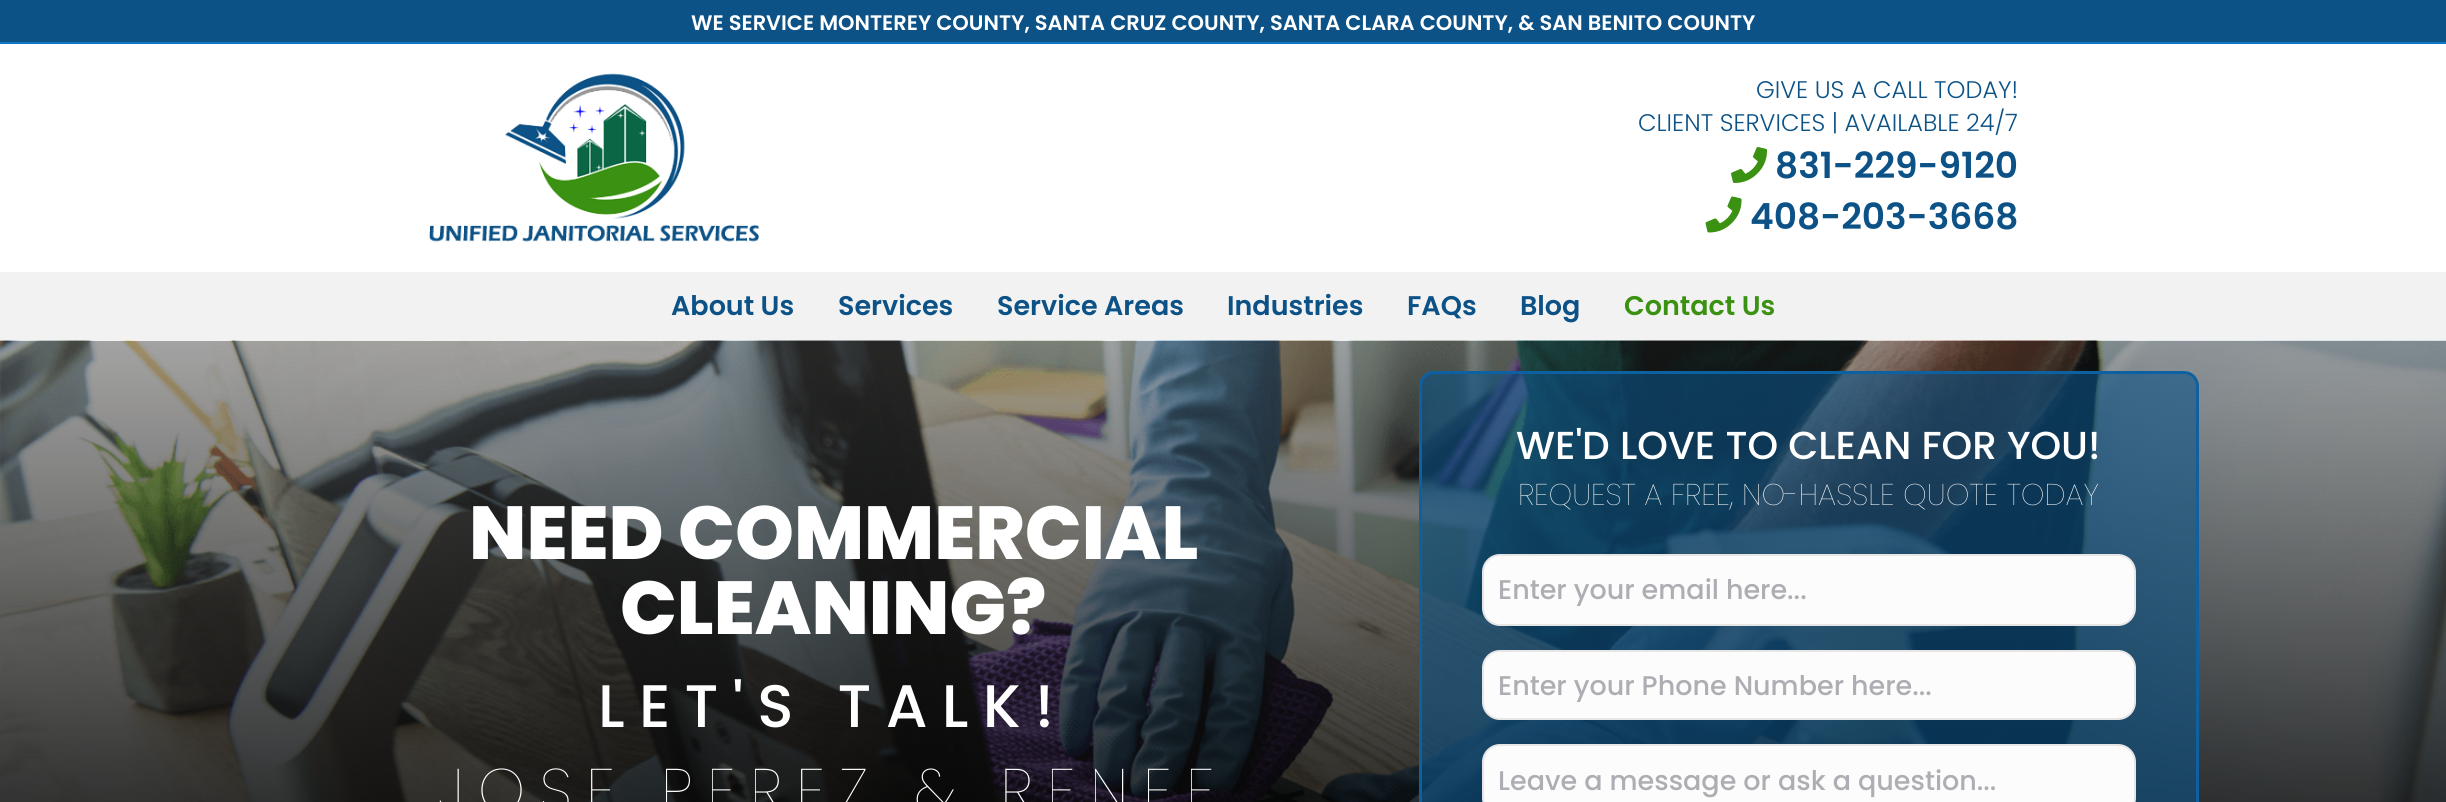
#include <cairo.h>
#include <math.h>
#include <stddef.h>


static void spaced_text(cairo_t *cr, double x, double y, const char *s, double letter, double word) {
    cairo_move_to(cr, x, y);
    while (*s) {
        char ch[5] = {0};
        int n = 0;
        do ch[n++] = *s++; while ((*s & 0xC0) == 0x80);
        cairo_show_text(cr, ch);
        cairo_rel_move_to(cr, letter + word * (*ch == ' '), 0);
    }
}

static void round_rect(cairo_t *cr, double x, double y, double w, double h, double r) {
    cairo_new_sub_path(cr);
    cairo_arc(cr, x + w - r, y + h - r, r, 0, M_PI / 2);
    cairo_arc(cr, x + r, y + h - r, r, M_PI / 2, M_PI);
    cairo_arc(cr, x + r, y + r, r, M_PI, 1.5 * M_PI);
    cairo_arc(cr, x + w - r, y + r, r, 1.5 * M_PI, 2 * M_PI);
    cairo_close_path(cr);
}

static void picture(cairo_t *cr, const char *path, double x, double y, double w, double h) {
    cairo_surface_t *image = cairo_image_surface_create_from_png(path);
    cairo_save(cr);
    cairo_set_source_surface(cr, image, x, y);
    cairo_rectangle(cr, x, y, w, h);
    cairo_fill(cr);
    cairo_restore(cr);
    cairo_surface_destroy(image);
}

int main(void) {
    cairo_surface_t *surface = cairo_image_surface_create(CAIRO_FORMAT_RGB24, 2446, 802);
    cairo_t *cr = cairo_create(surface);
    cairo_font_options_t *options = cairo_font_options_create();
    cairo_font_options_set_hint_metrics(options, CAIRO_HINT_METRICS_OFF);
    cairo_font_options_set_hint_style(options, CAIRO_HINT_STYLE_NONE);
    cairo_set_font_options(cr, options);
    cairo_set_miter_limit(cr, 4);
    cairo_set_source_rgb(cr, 0.047, 0.322, 0.525);
    cairo_paint(cr);
    cairo_set_source_rgb(cr, 0.067, 0.467, 0.765);
    cairo_rectangle(cr, 0, 42, 2446, 2);
    cairo_fill(cr);
    cairo_select_font_face(cr, "Poppins SemiBold", CAIRO_FONT_SLANT_NORMAL, CAIRO_FONT_WEIGHT_NORMAL);
    cairo_set_font_size(cr, 21);
    cairo_set_source_rgb(cr, 1, 1, 1);
    cairo_move_to(cr, 691, 30);
    cairo_show_text(cr, "WE SERVICE MONTEREY COUNTY, SANTA CRUZ COUNTY, SANTA CLARA COUNTY, & SAN BENITO COUNTY");
    cairo_rectangle(cr, 0, 44, 2446, 228);
    cairo_fill(cr);
    picture(cr, "img1.png", 429, 73, 330, 169);
    cairo_select_font_face(cr, "Poppins Light", CAIRO_FONT_SLANT_NORMAL, CAIRO_FONT_WEIGHT_NORMAL);
    cairo_set_font_size(cr, 24);
    cairo_set_source_rgb(cr, 0.047, 0.322, 0.525);
    cairo_move_to(cr, 1756, 98);
    cairo_show_text(cr, "GIVE US A CALL TODAY!");
    cairo_move_to(cr, 1638, 131);
    cairo_show_text(cr, "CLIENT SERVICES | AVAILABLE 24/7");
    picture(cr, "img2.png", 1731, 147, 37, 36);
    cairo_select_font_face(cr, "Poppins SemiBold", CAIRO_FONT_SLANT_NORMAL, CAIRO_FONT_WEIGHT_NORMAL);
    cairo_set_font_size(cr, 36);
    cairo_move_to(cr, 1775, 178);
    cairo_show_text(cr, "831-229-9120");
    picture(cr, "img3.png", 1705, 196, 37, 37);
    cairo_move_to(cr, 1750, 229);
    cairo_show_text(cr, "408-203-3668");
    cairo_set_source_rgb(cr, 0.949, 0.949, 0.949);
    cairo_rectangle(cr, 0, 272, 2446, 69);
    cairo_fill(cr);
    cairo_set_font_size(cr, 27);
    cairo_set_source_rgb(cr, 0.047, 0.322, 0.525);
    cairo_move_to(cr, 671, 315);
    cairo_show_text(cr, "About Us");
    cairo_move_to(cr, 838, 315);
    cairo_show_text(cr, "Services");
    cairo_move_to(cr, 997, 315);
    cairo_show_text(cr, "Service Areas");
    cairo_move_to(cr, 1227, 315);
    cairo_show_text(cr, "Industries");
    cairo_move_to(cr, 1407, 315);
    cairo_show_text(cr, "FAQs");
    cairo_move_to(cr, 1520, 315);
    cairo_show_text(cr, "Blog");
    cairo_set_source_rgb(cr, 0.231, 0.569, 0.071);
    cairo_move_to(cr, 1624, 315);
    cairo_show_text(cr, "Contact Us");
    picture(cr, "img4.png", 0, 340, 2446, 462);
    cairo_select_font_face(cr, "Poppins ExtraBold", CAIRO_FONT_SLANT_NORMAL, CAIRO_FONT_WEIGHT_NORMAL);
    cairo_set_font_size(cr, 75);
    cairo_set_source_rgb(cr, 1, 1, 1);
    cairo_move_to(cr, 469, 559);
    cairo_show_text(cr, "NEED COMMERCIAL");
    cairo_move_to(cr, 620, 634);
    cairo_show_text(cr, "CLEANING?");
    cairo_select_font_face(cr, "Poppins Medium", CAIRO_FONT_SLANT_NORMAL, CAIRO_FONT_WEIGHT_NORMAL);
    cairo_set_font_size(cr, 60);
    spaced_text(cr, 598, 727, "LET'S TALK!", 14.25, 0);
    cairo_select_font_face(cr, "Poppins Thin", CAIRO_FONT_SLANT_NORMAL, CAIRO_FONT_WEIGHT_NORMAL);
    spaced_text(cr, 438, 811, "JOSE PEREZ & RENEE", 14.25, 0);
    cairo_set_source_rgba(cr, 0.047, 0.322, 0.525, 0.6);
    round_rect(cr, 1420.5, 372.5, 777, 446, 13.5);
    cairo_fill_preserve(cr);
    cairo_set_source_rgb(cr, 0.055, 0.38, 0.631);
    cairo_set_line_width(cr, 3);
    cairo_stroke(cr);
    cairo_select_font_face(cr, "Poppins Medium", CAIRO_FONT_SLANT_NORMAL, CAIRO_FONT_WEIGHT_NORMAL);
    cairo_set_font_size(cr, 39);
    cairo_set_source_rgb(cr, 1, 1, 1);
    cairo_move_to(cr, 1516, 459);
    cairo_show_text(cr, "WE'D LOVE TO CLEAN FOR YOU!");
    cairo_select_font_face(cr, "Poppins Thin", CAIRO_FONT_SLANT_NORMAL, CAIRO_FONT_WEIGHT_NORMAL);
    cairo_set_font_size(cr, 30);
    cairo_move_to(cr, 1518, 505);
    cairo_show_text(cr, "REQUEST A FREE, NO-HASSLE QUOTE TODAY");
    cairo_set_source_rgb(cr, 0.988, 0.988, 0.988);
    round_rect(cr, 1483, 555, 652, 70, 17);
    cairo_fill_preserve(cr);
    cairo_set_source_rgb(cr, 0.902, 0.902, 0.902);
    cairo_set_line_width(cr, 2);
    cairo_stroke(cr);
    cairo_select_font_face(cr, "Poppins Medium", CAIRO_FONT_SLANT_NORMAL, CAIRO_FONT_WEIGHT_NORMAL);
    cairo_set_font_size(cr, 27);
    cairo_set_source_rgb(cr, 0.678, 0.678, 0.702);
    cairo_move_to(cr, 1498, 599);
    cairo_show_text(cr, "Enter your email here...");
    cairo_set_source_rgb(cr, 0.988, 0.988, 0.988);
    round_rect(cr, 1483, 651, 652, 68, 17);
    cairo_fill_preserve(cr);
    cairo_set_source_rgb(cr, 0.902, 0.902, 0.902);
    cairo_stroke(cr);
    cairo_set_source_rgb(cr, 0.678, 0.678, 0.702);
    cairo_move_to(cr, 1498, 695);
    cairo_show_text(cr, "Enter your Phone Number here...");
    cairo_set_source_rgb(cr, 0.988, 0.988, 0.988);
    round_rect(cr, 1483, 745, 652, 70, 17);
    cairo_fill_preserve(cr);
    cairo_set_source_rgb(cr, 0.902, 0.902, 0.902);
    cairo_stroke(cr);
    cairo_set_source_rgb(cr, 0.678, 0.678, 0.702);
    cairo_move_to(cr, 1498, 790);
    cairo_show_text(cr, "Leave a message or ask a question...");
    cairo_surface_write_to_png(surface, "page.png");
    cairo_font_options_destroy(options);
    cairo_destroy(cr);
    cairo_surface_destroy(surface);
    return 0;
}
